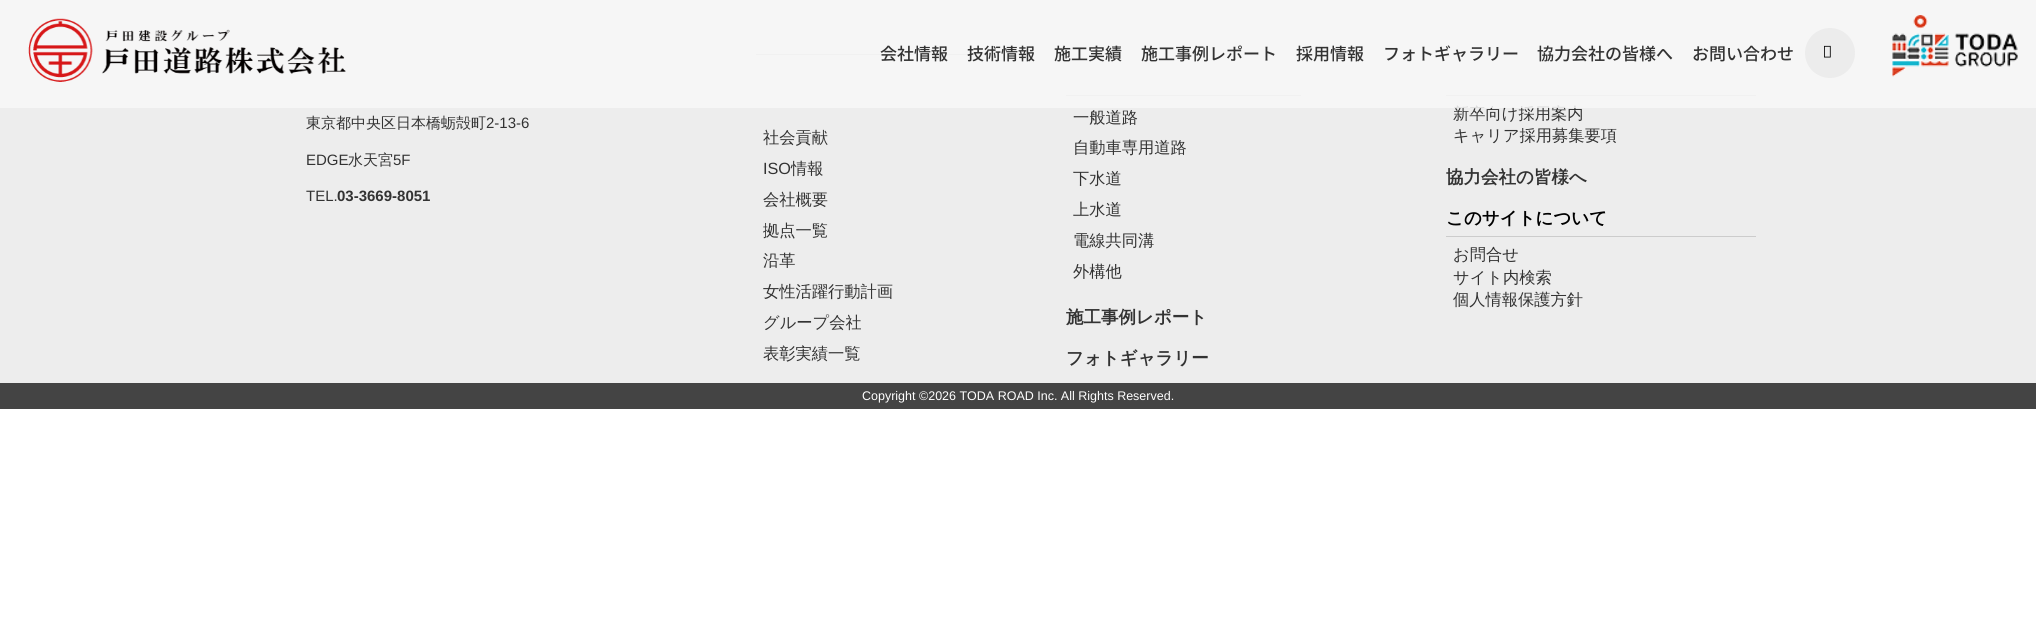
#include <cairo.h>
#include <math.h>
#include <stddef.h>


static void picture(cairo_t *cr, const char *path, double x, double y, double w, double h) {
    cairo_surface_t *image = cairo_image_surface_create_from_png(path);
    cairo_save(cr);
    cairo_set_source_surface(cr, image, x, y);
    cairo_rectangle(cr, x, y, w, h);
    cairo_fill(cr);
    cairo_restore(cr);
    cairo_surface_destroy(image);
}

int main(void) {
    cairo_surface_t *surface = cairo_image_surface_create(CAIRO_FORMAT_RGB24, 2036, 618);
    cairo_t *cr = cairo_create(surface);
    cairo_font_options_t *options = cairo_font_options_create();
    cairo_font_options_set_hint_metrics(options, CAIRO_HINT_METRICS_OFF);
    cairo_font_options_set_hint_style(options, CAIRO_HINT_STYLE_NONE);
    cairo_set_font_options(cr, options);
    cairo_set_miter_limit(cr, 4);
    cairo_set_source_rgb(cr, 1, 1, 1);
    cairo_paint(cr);
    cairo_set_source_rgb(cr, 0.929, 0.929, 0.929);
    cairo_rectangle(cr, 0, 0, 2036, 383);
    cairo_fill(cr);
    cairo_set_source_rgb(cr, 0.8, 0.8, 0.8);
    cairo_rectangle(cr, 756, 54, 235, 1);
    cairo_fill(cr);
    cairo_rectangle(cr, 1066, 95, 235, 1);
    cairo_fill(cr);
    cairo_rectangle(cr, 1446, 95, 310, 1);
    cairo_fill(cr);
    cairo_select_font_face(cr, "WenQuanYi Zen Hei Medium", CAIRO_FONT_SLANT_NORMAL, CAIRO_FONT_WEIGHT_NORMAL);
    cairo_set_font_size(cr, 16.25);
    cairo_set_source_rgb(cr, 0.2, 0.2, 0.2);
    cairo_move_to(cr, 1453, 119);
    cairo_show_text(cr, "新卒向け採用案内");
    cairo_set_source_rgba(cr, 0.973, 0.973, 0.973, 0.85);
    cairo_rectangle(cr, 0, 0, 2036, 108);
    cairo_fill(cr);
    picture(cr, "img1.png", 28, 18, 318, 64);
    cairo_select_font_face(cr, "Noto Sans JP Medium", CAIRO_FONT_SLANT_NORMAL, CAIRO_FONT_WEIGHT_NORMAL);
    cairo_set_font_size(cr, 17);
    cairo_set_source_rgb(cr, 0.2, 0.2, 0.2);
    cairo_move_to(cr, 880, 60);
    cairo_show_text(cr, "会社情報");
    cairo_move_to(cr, 967, 60);
    cairo_show_text(cr, "技術情報");
    cairo_move_to(cr, 1054, 60);
    cairo_show_text(cr, "施工実績");
    cairo_move_to(cr, 1141, 60);
    cairo_show_text(cr, "施工事例レポート");
    cairo_move_to(cr, 1296, 60);
    cairo_show_text(cr, "採用情報");
    cairo_move_to(cr, 1383, 60);
    cairo_show_text(cr, "フォトギャラリー");
    cairo_move_to(cr, 1537, 60);
    cairo_show_text(cr, "協力会社の皆様へ");
    cairo_move_to(cr, 1692, 60);
    cairo_show_text(cr, "お問い合わせ");
    cairo_set_source_rgb(cr, 0.922, 0.922, 0.922);
    cairo_new_path(cr);
    cairo_arc(cr, 1830, 53, 25, 0, 2 * M_PI);
    cairo_fill(cr);
    picture(cr, "img2.png", 1824, 45, 7, 13);
    picture(cr, "img3.png", 1892, 15, 126, 62);
    cairo_select_font_face(cr, "WenQuanYi Zen Hei Medium", CAIRO_FONT_SLANT_NORMAL, CAIRO_FONT_WEIGHT_NORMAL);
    cairo_set_font_size(cr, 15);
    cairo_set_source_rgb(cr, 0.2, 0.2, 0.2);
    cairo_move_to(cr, 306, 128);
    cairo_show_text(cr, "東京都中央区日本橋蛎殻町");
    cairo_select_font_face(cr, "Liberation Sans", CAIRO_FONT_SLANT_NORMAL, CAIRO_FONT_WEIGHT_NORMAL);
    cairo_move_to(cr, 486, 128);
    cairo_show_text(cr, "2-13-6");
    cairo_move_to(cr, 306, 165);
    cairo_show_text(cr, "EDGE");
    cairo_select_font_face(cr, "WenQuanYi Zen Hei Medium", CAIRO_FONT_SLANT_NORMAL, CAIRO_FONT_WEIGHT_NORMAL);
    cairo_move_to(cr, 348, 165);
    cairo_show_text(cr, "水天宮");
    cairo_select_font_face(cr, "Liberation Sans", CAIRO_FONT_SLANT_NORMAL, CAIRO_FONT_WEIGHT_NORMAL);
    cairo_move_to(cr, 393, 165);
    cairo_show_text(cr, "5F");
    cairo_move_to(cr, 306, 201);
    cairo_show_text(cr, "TEL.");
    cairo_select_font_face(cr, "Liberation Sans", CAIRO_FONT_SLANT_NORMAL, CAIRO_FONT_WEIGHT_BOLD);
    cairo_move_to(cr, 337, 201);
    cairo_show_text(cr, "03-3669-8051");
    cairo_select_font_face(cr, "WenQuanYi Zen Hei Medium", CAIRO_FONT_SLANT_NORMAL, CAIRO_FONT_WEIGHT_NORMAL);
    cairo_set_font_size(cr, 16.25);
    cairo_move_to(cr, 763, 143);
    cairo_show_text(cr, "社会貢献");
    cairo_select_font_face(cr, "Liberation Sans", CAIRO_FONT_SLANT_NORMAL, CAIRO_FONT_WEIGHT_NORMAL);
    cairo_move_to(cr, 763, 174);
    cairo_show_text(cr, "ISO");
    cairo_select_font_face(cr, "WenQuanYi Zen Hei Medium", CAIRO_FONT_SLANT_NORMAL, CAIRO_FONT_WEIGHT_NORMAL);
    cairo_move_to(cr, 791, 174);
    cairo_show_text(cr, "情報");
    cairo_move_to(cr, 763, 205);
    cairo_show_text(cr, "会社概要");
    cairo_move_to(cr, 763, 236);
    cairo_show_text(cr, "拠点一覧");
    cairo_move_to(cr, 763, 266);
    cairo_show_text(cr, "沿革");
    cairo_move_to(cr, 763, 297);
    cairo_show_text(cr, "女性活躍行動計画");
    cairo_move_to(cr, 763, 328);
    cairo_show_text(cr, "グループ会社");
    cairo_move_to(cr, 763, 359);
    cairo_show_text(cr, "表彰実績一覧");
    cairo_move_to(cr, 1073, 123);
    cairo_show_text(cr, "一般道路");
    cairo_move_to(cr, 1073, 153);
    cairo_show_text(cr, "自動車専用道路");
    cairo_move_to(cr, 1073, 184);
    cairo_show_text(cr, "下水道");
    cairo_move_to(cr, 1073, 215);
    cairo_show_text(cr, "上水道");
    cairo_move_to(cr, 1073, 246);
    cairo_show_text(cr, "電線共同溝");
    cairo_move_to(cr, 1073, 277);
    cairo_show_text(cr, "外構他");
    cairo_select_font_face(cr, "WenQuanYi Zen Hei", CAIRO_FONT_SLANT_NORMAL, CAIRO_FONT_WEIGHT_BOLD);
    cairo_set_font_size(cr, 17.5);
    cairo_move_to(cr, 1066, 323);
    cairo_show_text(cr, "施工事例レポート");
    cairo_move_to(cr, 1066, 364);
    cairo_show_text(cr, "フォトギャラリー");
    cairo_select_font_face(cr, "WenQuanYi Zen Hei Medium", CAIRO_FONT_SLANT_NORMAL, CAIRO_FONT_WEIGHT_NORMAL);
    cairo_set_font_size(cr, 16.25);
    cairo_move_to(cr, 1453, 141);
    cairo_show_text(cr, "キャリア採用募集要項");
    cairo_select_font_face(cr, "WenQuanYi Zen Hei", CAIRO_FONT_SLANT_NORMAL, CAIRO_FONT_WEIGHT_BOLD);
    cairo_set_font_size(cr, 17.5);
    cairo_move_to(cr, 1446, 183);
    cairo_show_text(cr, "協力会社の皆様へ");
    cairo_set_source_rgb(cr, 0.8, 0.8, 0.8);
    cairo_rectangle(cr, 1446, 236, 310, 1);
    cairo_fill(cr);
    cairo_set_source_rgb(cr, 0, 0, 0);
    cairo_move_to(cr, 1446, 224);
    cairo_show_text(cr, "このサイトについて");
    cairo_select_font_face(cr, "WenQuanYi Zen Hei Medium", CAIRO_FONT_SLANT_NORMAL, CAIRO_FONT_WEIGHT_NORMAL);
    cairo_set_font_size(cr, 16.25);
    cairo_set_source_rgb(cr, 0.2, 0.2, 0.2);
    cairo_move_to(cr, 1453, 260);
    cairo_show_text(cr, "お問合せ");
    cairo_move_to(cr, 1453, 283);
    cairo_show_text(cr, "サイト内検索");
    cairo_move_to(cr, 1453, 305);
    cairo_show_text(cr, "個人情報保護方針");
    cairo_set_source_rgb(cr, 0.267, 0.267, 0.267);
    cairo_rectangle(cr, 0, 383, 2036, 26);
    cairo_fill(cr);
    cairo_select_font_face(cr, "Liberation Sans", CAIRO_FONT_SLANT_NORMAL, CAIRO_FONT_WEIGHT_NORMAL);
    cairo_set_font_size(cr, 12.5);
    cairo_set_source_rgb(cr, 1, 1, 1);
    cairo_move_to(cr, 862, 400);
    cairo_show_text(cr, "Copyright ©2026 TODA ROAD Inc. All Rights Reserved.");
    cairo_surface_write_to_png(surface, "page.png");
    cairo_font_options_destroy(options);
    cairo_destroy(cr);
    cairo_surface_destroy(surface);
    return 0;
}
